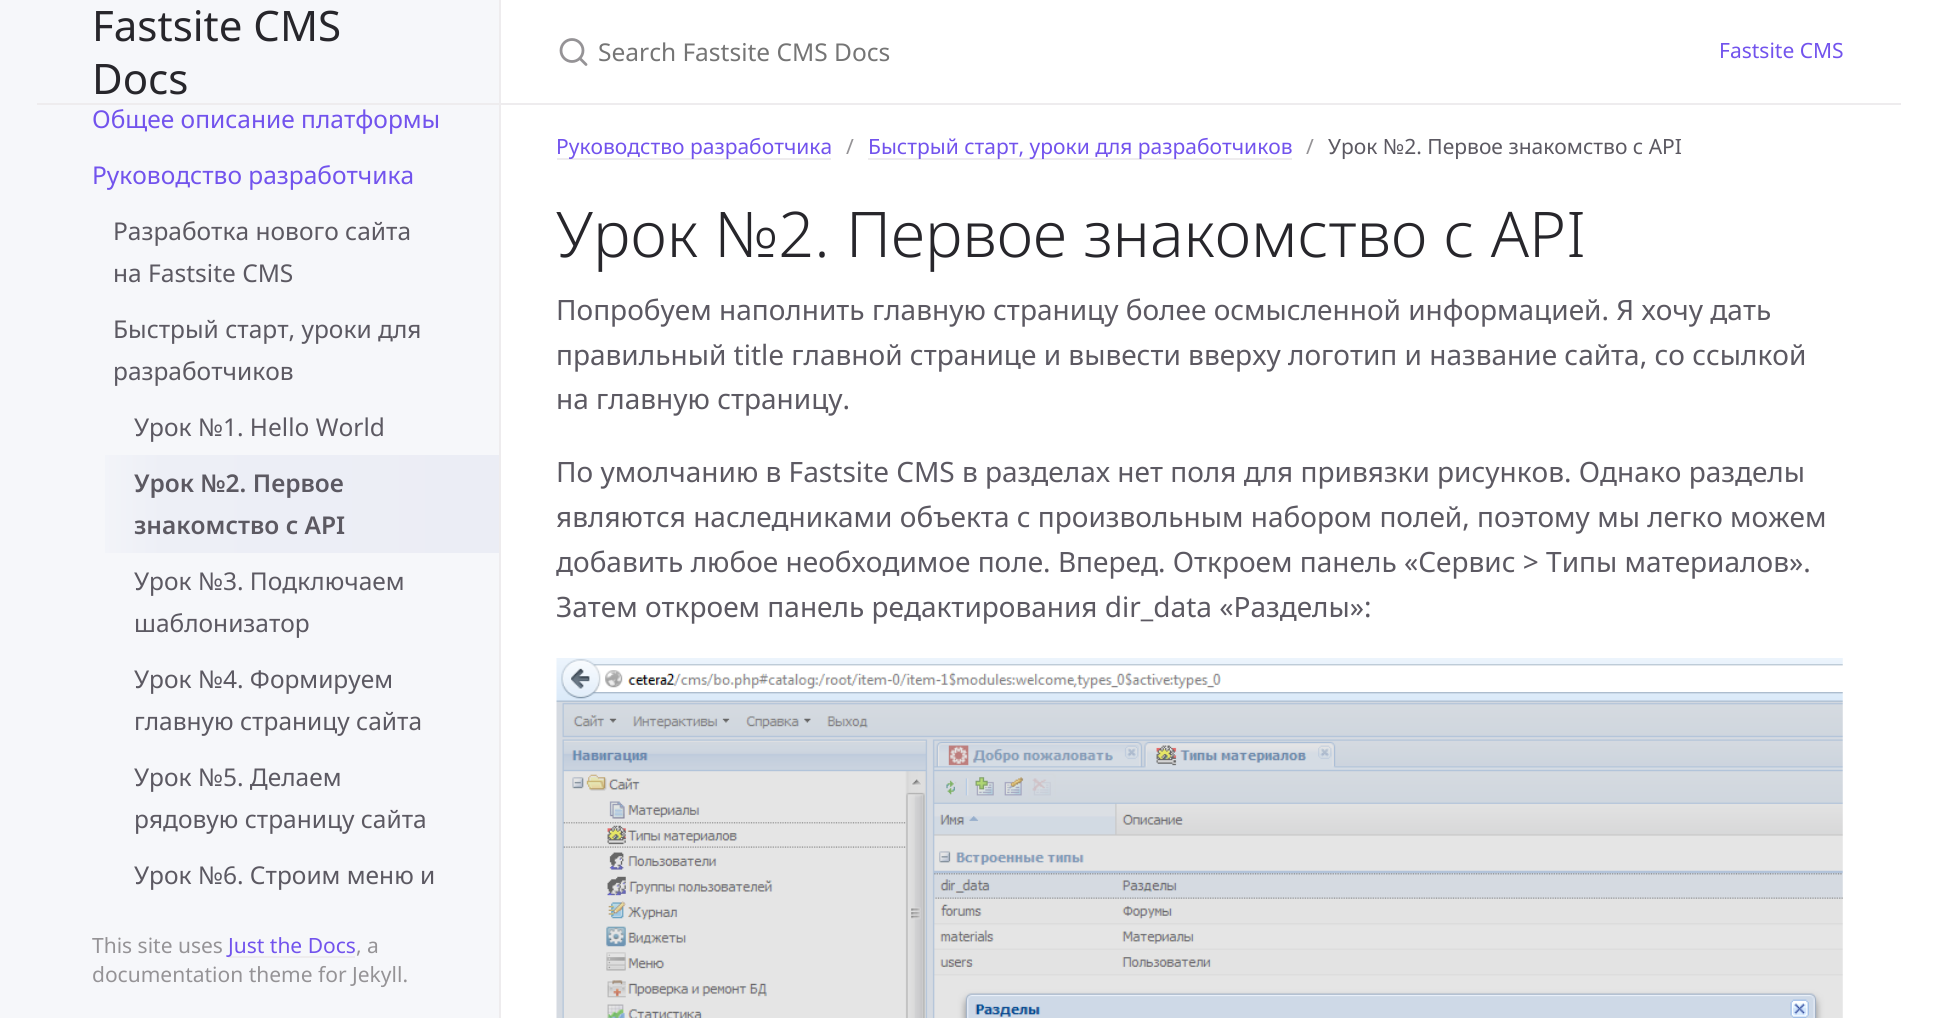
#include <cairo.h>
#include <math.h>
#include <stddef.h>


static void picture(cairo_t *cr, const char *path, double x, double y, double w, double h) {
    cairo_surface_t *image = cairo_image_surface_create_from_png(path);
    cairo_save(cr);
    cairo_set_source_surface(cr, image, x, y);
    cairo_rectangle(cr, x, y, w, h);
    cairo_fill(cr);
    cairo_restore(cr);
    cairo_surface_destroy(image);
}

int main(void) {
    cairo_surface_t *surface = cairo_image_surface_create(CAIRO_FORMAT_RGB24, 1936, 1018);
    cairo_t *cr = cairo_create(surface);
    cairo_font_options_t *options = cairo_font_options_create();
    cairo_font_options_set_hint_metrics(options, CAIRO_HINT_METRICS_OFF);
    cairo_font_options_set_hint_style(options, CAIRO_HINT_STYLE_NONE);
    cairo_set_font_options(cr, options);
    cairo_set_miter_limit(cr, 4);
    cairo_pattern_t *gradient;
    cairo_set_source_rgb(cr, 1, 1, 1);
    cairo_paint(cr);
    cairo_set_source_rgb(cr, 0.961, 0.965, 0.98);
    cairo_rectangle(cr, 0, 0, 499, 1018);
    cairo_fill(cr);
    cairo_set_source_rgb(cr, 0.933, 0.922, 0.933);
    cairo_rectangle(cr, 499, 0, 2, 1018);
    cairo_fill(cr);
    cairo_rectangle(cr, 37, 103, 462, 2);
    cairo_fill(cr);
    cairo_select_font_face(cr, "Noto Sans", CAIRO_FONT_SLANT_NORMAL, CAIRO_FONT_WEIGHT_NORMAL);
    cairo_set_font_size(cr, 42);
    cairo_set_source_rgb(cr, 0.153, 0.149, 0.169);
    cairo_move_to(cr, 92, 41);
    cairo_show_text(cr, "Fastsite CMS");
    cairo_move_to(cr, 92, 94);
    cairo_show_text(cr, "Docs");
    cairo_set_font_size(cr, 24.5);
    cairo_set_source_rgb(cr, 0.447, 0.325, 0.929);
    cairo_move_to(cr, 92, 128);
    cairo_show_text(cr, "Общее описание платформы");
    cairo_move_to(cr, 92, 184);
    cairo_show_text(cr, "Руководство разработчика");
    cairo_set_source_rgb(cr, 0.361, 0.349, 0.384);
    cairo_move_to(cr, 113, 240);
    cairo_show_text(cr, "Разработка нового сайта");
    cairo_move_to(cr, 113, 282);
    cairo_show_text(cr, "на Fastsite CMS");
    cairo_move_to(cr, 113, 338);
    cairo_show_text(cr, "Быстрый старт, уроки для");
    cairo_move_to(cr, 113, 380);
    cairo_show_text(cr, "разработчиков");
    cairo_move_to(cr, 134, 436);
    cairo_show_text(cr, "Урок №1. Hello World");
    gradient = cairo_pattern_create_linear(499, 504, 79, 504);
    cairo_pattern_add_color_stop_rgba(gradient, 0, 0.922, 0.929, 0.961, 1);
    cairo_pattern_add_color_stop_rgba(gradient, 0.8, 0.929, 0.937, 0.965, 1);
    cairo_pattern_add_color_stop_rgba(gradient, 1, 0.961, 0.965, 0.98, 1);
    cairo_set_source(cr, gradient);
    cairo_pattern_destroy(gradient);
    cairo_rectangle(cr, 105, 455, 394, 98);
    cairo_fill(cr);
    cairo_select_font_face(cr, "Noto Sans SemiBold", CAIRO_FONT_SLANT_NORMAL, CAIRO_FONT_WEIGHT_NORMAL);
    cairo_set_source_rgb(cr, 0.361, 0.349, 0.384);
    cairo_move_to(cr, 134, 492);
    cairo_show_text(cr, "Урок №2. Первое");
    cairo_move_to(cr, 134, 534);
    cairo_show_text(cr, "знакомство с API");
    cairo_select_font_face(cr, "Noto Sans", CAIRO_FONT_SLANT_NORMAL, CAIRO_FONT_WEIGHT_NORMAL);
    cairo_move_to(cr, 134, 590);
    cairo_show_text(cr, "Урок №3. Подключаем");
    cairo_move_to(cr, 134, 632);
    cairo_show_text(cr, "шаблонизатор");
    cairo_move_to(cr, 134, 688);
    cairo_show_text(cr, "Урок №4. Формируем");
    cairo_move_to(cr, 134, 730);
    cairo_show_text(cr, "главную страницу сайта");
    cairo_move_to(cr, 134, 786);
    cairo_show_text(cr, "Урок №5. Делаем");
    cairo_move_to(cr, 134, 828);
    cairo_show_text(cr, "рядовую страницу сайта");
    cairo_move_to(cr, 134, 884);
    cairo_show_text(cr, "Урок №6. Строим меню и");
    cairo_set_font_size(cr, 21);
    cairo_set_source_rgb(cr, 0.584, 0.576, 0.588);
    cairo_move_to(cr, 92, 953);
    cairo_show_text(cr, "This site uses");
    cairo_set_source_rgb(cr, 0.933, 0.922, 0.933);
    cairo_rectangle(cr, 228, 956, 127, 2);
    cairo_fill(cr);
    cairo_set_source_rgb(cr, 0.447, 0.325, 0.929);
    cairo_move_to(cr, 228, 953);
    cairo_show_text(cr, "Just the Docs");
    cairo_set_source_rgb(cr, 0.584, 0.576, 0.588);
    cairo_move_to(cr, 356, 953);
    cairo_show_text(cr, ", a");
    cairo_move_to(cr, 92, 982);
    cairo_show_text(cr, "documentation theme for Jekyll.");
    cairo_set_source_rgb(cr, 0.933, 0.922, 0.933);
    cairo_rectangle(cr, 501, 103, 1400, 2);
    cairo_fill(cr);
    cairo_arc(cr, 572, 50.5, 11, 0, 2 * M_PI);
    cairo_set_source_rgb(cr, 0.584, 0.576, 0.588);
    cairo_set_line_width(cr, 2.8);
    cairo_stroke(cr);
    cairo_new_path(cr);
    cairo_move_to(cr, 586, 64.5);
    cairo_line_to(cr, 580, 58.5);
    cairo_set_line_cap(cr, CAIRO_LINE_CAP_ROUND);
    cairo_set_line_join(cr, CAIRO_LINE_JOIN_ROUND);
    cairo_stroke(cr);
    cairo_set_font_size(cr, 24.5);
    cairo_set_source_rgb(cr, 0.459, 0.459, 0.459);
    cairo_move_to(cr, 598, 61);
    cairo_show_text(cr, "Search Fastsite CMS Docs");
    cairo_set_font_size(cr, 21);
    cairo_set_source_rgb(cr, 0.447, 0.325, 0.929);
    cairo_move_to(cr, 1719, 58);
    cairo_show_text(cr, "Fastsite CMS");
    cairo_set_source_rgb(cr, 0.933, 0.922, 0.933);
    cairo_rectangle(cr, 557, 158, 274, 2);
    cairo_fill(cr);
    cairo_set_source_rgb(cr, 0.447, 0.325, 0.929);
    cairo_move_to(cr, 556, 154);
    cairo_show_text(cr, "Руководство разработчика");
    cairo_set_source_rgb(cr, 0.584, 0.576, 0.588);
    cairo_move_to(cr, 846, 154);
    cairo_show_text(cr, "/");
    cairo_set_source_rgb(cr, 0.933, 0.922, 0.933);
    cairo_rectangle(cr, 868, 158, 424, 2);
    cairo_fill(cr);
    cairo_set_source_rgb(cr, 0.447, 0.325, 0.929);
    cairo_move_to(cr, 868, 154);
    cairo_show_text(cr, "Быстрый старт, уроки для разработчиков");
    cairo_set_source_rgb(cr, 0.584, 0.576, 0.588);
    cairo_move_to(cr, 1306, 154);
    cairo_show_text(cr, "/");
    cairo_set_source_rgb(cr, 0.361, 0.349, 0.384);
    cairo_move_to(cr, 1328, 154);
    cairo_show_text(cr, "Урок №2. Первое знакомство с API");
    cairo_select_font_face(cr, "Noto Sans Light", CAIRO_FONT_SLANT_NORMAL, CAIRO_FONT_WEIGHT_NORMAL);
    cairo_set_font_size(cr, 63);
    cairo_set_source_rgb(cr, 0.153, 0.149, 0.169);
    cairo_move_to(cr, 556, 257);
    cairo_show_text(cr, "Урок №2. Первое знакомство с API");
    cairo_select_font_face(cr, "Noto Sans", CAIRO_FONT_SLANT_NORMAL, CAIRO_FONT_WEIGHT_NORMAL);
    cairo_set_font_size(cr, 28);
    cairo_set_source_rgb(cr, 0.361, 0.349, 0.384);
    cairo_move_to(cr, 556, 320);
    cairo_show_text(cr, "Попробуем наполнить главную страницу более осмысленной информацией. Я хочу дать");
    cairo_move_to(cr, 556, 365);
    cairo_show_text(cr, "правильный title главной странице и вывести вверху логотип и название сайта, со ссылкой");
    cairo_move_to(cr, 556, 409);
    cairo_show_text(cr, "на главную страницу.");
    cairo_move_to(cr, 556, 482);
    cairo_show_text(cr, "По умолчанию в Fastsite CMS в разделах нет поля для привязки рисунков. Однако разделы");
    cairo_move_to(cr, 556, 527);
    cairo_show_text(cr, "являются наследниками объекта с произвольным набором полей, поэтому мы легко можем");
    cairo_move_to(cr, 556, 572);
    cairo_show_text(cr, "добавить любое необходимое поле. Вперед. Откроем панель «Сервис > Типы материалов».");
    cairo_move_to(cr, 556, 617);
    cairo_show_text(cr, "Затем откроем панель редактирования dir_data «Разделы»:");
    picture(cr, "img1.png", 556, 658, 1287, 360);
    cairo_surface_write_to_png(surface, "page.png");
    cairo_font_options_destroy(options);
    cairo_destroy(cr);
    cairo_surface_destroy(surface);
    return 0;
}
